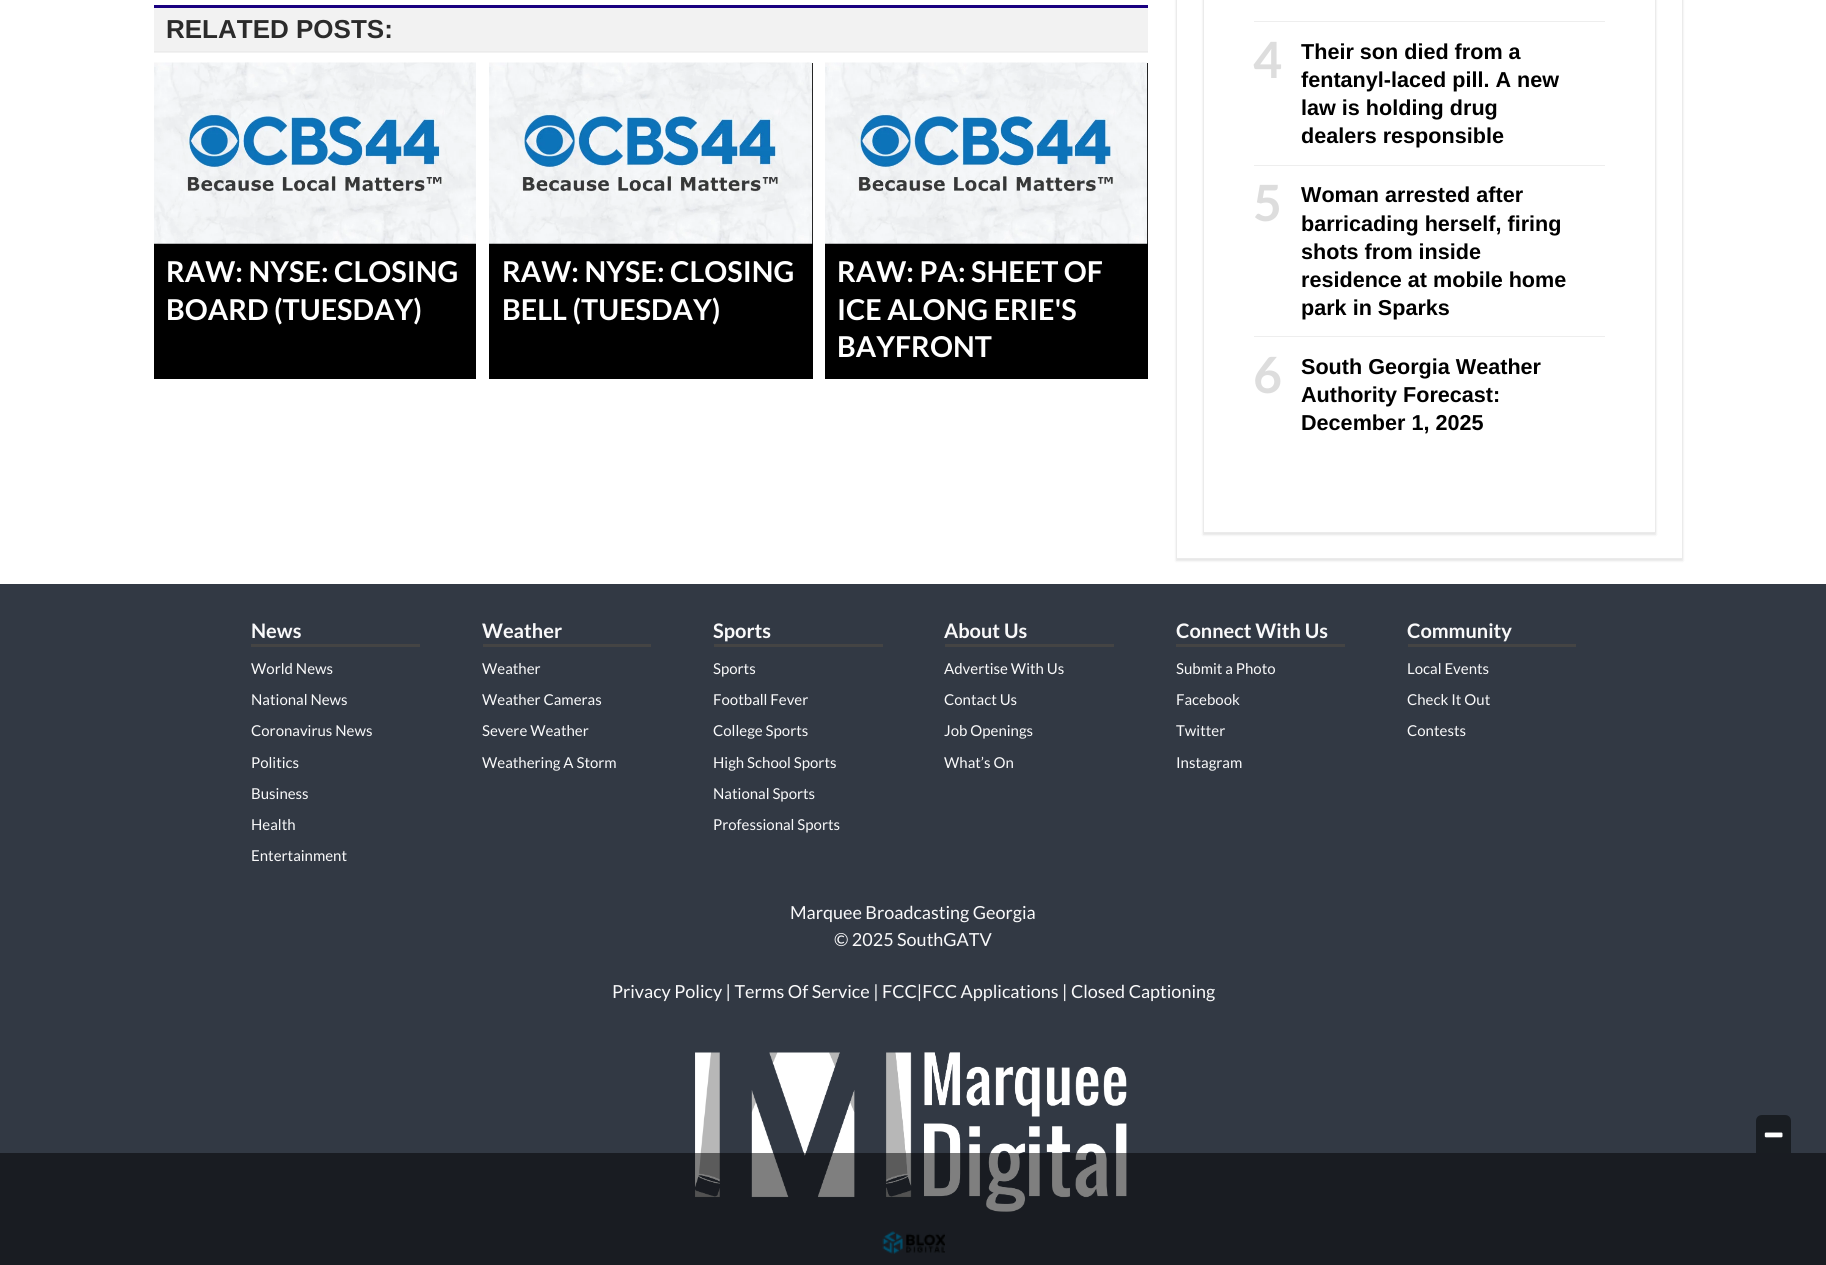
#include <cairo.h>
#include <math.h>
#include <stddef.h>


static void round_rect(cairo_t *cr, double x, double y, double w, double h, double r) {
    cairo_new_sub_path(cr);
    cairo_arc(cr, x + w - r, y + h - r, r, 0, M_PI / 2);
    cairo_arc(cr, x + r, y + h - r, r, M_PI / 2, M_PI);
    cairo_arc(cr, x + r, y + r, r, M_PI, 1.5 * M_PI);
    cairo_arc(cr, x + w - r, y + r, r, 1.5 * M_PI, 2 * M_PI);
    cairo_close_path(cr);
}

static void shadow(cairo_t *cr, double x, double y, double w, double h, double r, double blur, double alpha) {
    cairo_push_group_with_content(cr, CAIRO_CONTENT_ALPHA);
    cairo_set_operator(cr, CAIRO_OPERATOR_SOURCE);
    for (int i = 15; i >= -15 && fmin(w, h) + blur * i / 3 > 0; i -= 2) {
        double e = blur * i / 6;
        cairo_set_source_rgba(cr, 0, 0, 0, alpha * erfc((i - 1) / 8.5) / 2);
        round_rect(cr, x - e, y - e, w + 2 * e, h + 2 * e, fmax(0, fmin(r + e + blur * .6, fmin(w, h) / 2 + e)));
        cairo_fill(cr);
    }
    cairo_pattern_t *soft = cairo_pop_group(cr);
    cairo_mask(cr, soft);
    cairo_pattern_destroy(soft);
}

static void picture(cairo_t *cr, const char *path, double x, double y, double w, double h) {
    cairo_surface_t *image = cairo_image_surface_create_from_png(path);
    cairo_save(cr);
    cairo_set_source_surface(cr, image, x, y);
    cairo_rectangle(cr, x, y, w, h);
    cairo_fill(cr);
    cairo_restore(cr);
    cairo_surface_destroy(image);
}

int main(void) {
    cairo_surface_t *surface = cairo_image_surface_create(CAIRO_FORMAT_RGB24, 1826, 1265);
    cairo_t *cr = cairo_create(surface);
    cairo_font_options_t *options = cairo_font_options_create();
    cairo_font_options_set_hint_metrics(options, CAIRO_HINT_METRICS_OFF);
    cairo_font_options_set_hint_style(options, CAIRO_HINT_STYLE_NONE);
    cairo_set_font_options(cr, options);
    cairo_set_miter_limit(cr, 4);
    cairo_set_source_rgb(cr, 1, 1, 1);
    cairo_paint(cr);
    cairo_set_source_rgb(cr, 0.949, 0.949, 0.949);
    cairo_rectangle(cr, 154, 8, 994, 45);
    cairo_fill(cr);
    cairo_set_source_rgb(cr, 0.098, 0, 0.502);
    cairo_rectangle(cr, 154, 5, 994, 3);
    cairo_fill(cr);
    cairo_set_source_rgb(cr, 0.918, 0.918, 0.918);
    cairo_rectangle(cr, 154, 51, 994, 1);
    cairo_fill(cr);
    cairo_select_font_face(cr, "Liberation Sans", CAIRO_FONT_SLANT_NORMAL, CAIRO_FONT_WEIGHT_BOLD);
    cairo_set_font_size(cr, 26);
    cairo_set_source_rgb(cr, 0.169, 0.169, 0.169);
    cairo_move_to(cr, 166, 38);
    cairo_show_text(cr, "RELATED POSTS:");
    cairo_set_source_rgb(cr, 0, 0, 0);
    cairo_rectangle(cr, 154, 243, 322, 136);
    cairo_fill(cr);
    picture(cr, "img1.png", 154, 62, 322, 182);
    cairo_select_font_face(cr, "Lato", CAIRO_FONT_SLANT_NORMAL, CAIRO_FONT_WEIGHT_BOLD);
    cairo_set_font_size(cr, 28.75);
    cairo_set_source_rgb(cr, 1, 1, 1);
    cairo_move_to(cr, 166, 282);
    cairo_show_text(cr, "RAW: NYSE: CLOSING");
    cairo_move_to(cr, 166, 320);
    cairo_show_text(cr, "BOARD (TUESDAY)");
    cairo_set_source_rgb(cr, 0, 0, 0);
    cairo_rectangle(cr, 489, 63, 324, 316);
    cairo_fill(cr);
    picture(cr, "img2.png", 489, 62, 324, 182);
    cairo_set_source_rgb(cr, 1, 1, 1);
    cairo_move_to(cr, 502, 282);
    cairo_show_text(cr, "RAW: NYSE: CLOSING");
    cairo_move_to(cr, 502, 320);
    cairo_show_text(cr, "BELL (TUESDAY)");
    cairo_set_source_rgb(cr, 0, 0, 0);
    cairo_rectangle(cr, 825, 63, 323, 316);
    cairo_fill(cr);
    picture(cr, "img3.png", 825, 62, 323, 182);
    cairo_set_source_rgb(cr, 1, 1, 1);
    cairo_move_to(cr, 837, 282);
    cairo_show_text(cr, "RAW: PA: SHEET OF");
    cairo_move_to(cr, 837, 320);
    cairo_show_text(cr, "ICE ALONG ERIE'S");
    cairo_move_to(cr, 837, 357);
    cairo_show_text(cr, "BAYFRONT");
    cairo_save(cr);
    cairo_set_fill_rule(cr, CAIRO_FILL_RULE_EVEN_ODD);
    cairo_new_path(cr);
    cairo_move_to(cr, 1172, 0);
    cairo_line_to(cr, 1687, 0);
    cairo_line_to(cr, 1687, 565);
    cairo_line_to(cr, 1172, 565);
    cairo_close_path(cr);
    cairo_move_to(cr, 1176, -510);
    cairo_line_to(cr, 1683, -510);
    cairo_line_to(cr, 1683, 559);
    cairo_line_to(cr, 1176, 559);
    cairo_close_path(cr);
    cairo_clip(cr);
    cairo_set_source_rgb(cr, 0, 0, 0);
    shadow(cr, 1176, -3, 507, 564, 0, 1, 0.1);
    cairo_restore(cr);
    cairo_rectangle(cr, 1176.5, -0.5, 506, 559);
    cairo_set_source_rgb(cr, 0.918, 0.918, 0.918);
    cairo_set_line_width(cr, 1);
    cairo_stroke(cr);
    cairo_save(cr);
    cairo_set_fill_rule(cr, CAIRO_FILL_RULE_EVEN_ODD);
    cairo_new_path(cr);
    cairo_move_to(cr, 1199, 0);
    cairo_line_to(cr, 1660, 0);
    cairo_line_to(cr, 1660, 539);
    cairo_line_to(cr, 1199, 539);
    cairo_close_path(cr);
    cairo_move_to(cr, 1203, -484);
    cairo_line_to(cr, 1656, -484);
    cairo_line_to(cr, 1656, 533);
    cairo_line_to(cr, 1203, 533);
    cairo_close_path(cr);
    cairo_clip(cr);
    cairo_set_source_rgb(cr, 0, 0, 0);
    shadow(cr, 1203, -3, 453, 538, 0, 1, 0.1);
    cairo_restore(cr);
    cairo_rectangle(cr, 1203.5, -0.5, 452, 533);
    cairo_stroke(cr);
    cairo_set_source_rgb(cr, 0.933, 0.933, 0.933);
    cairo_rectangle(cr, 1254, 21, 351, 1);
    cairo_fill(cr);
    cairo_rectangle(cr, 1254, 165, 351, 1);
    cairo_fill(cr);
    cairo_set_font_size(cr, 50);
    cairo_set_source_rgb(cr, 0.867, 0.867, 0.867);
    cairo_move_to(cr, 1253, 78);
    cairo_show_text(cr, "4");
    cairo_select_font_face(cr, "Liberation Sans", CAIRO_FONT_SLANT_NORMAL, CAIRO_FONT_WEIGHT_BOLD);
    cairo_set_font_size(cr, 21.6);
    cairo_set_source_rgb(cr, 0, 0, 0);
    cairo_move_to(cr, 1301, 59);
    cairo_show_text(cr, "Their son died from a");
    cairo_move_to(cr, 1301, 87);
    cairo_show_text(cr, "fentanyl-laced pill. A new");
    cairo_move_to(cr, 1301, 115);
    cairo_show_text(cr, "law is holding drug");
    cairo_move_to(cr, 1301, 143);
    cairo_show_text(cr, "dealers responsible");
    cairo_set_source_rgb(cr, 0.933, 0.933, 0.933);
    cairo_rectangle(cr, 1254, 336, 351, 1);
    cairo_fill(cr);
    cairo_select_font_face(cr, "Lato", CAIRO_FONT_SLANT_NORMAL, CAIRO_FONT_WEIGHT_BOLD);
    cairo_set_font_size(cr, 50);
    cairo_set_source_rgb(cr, 0.867, 0.867, 0.867);
    cairo_move_to(cr, 1253, 221);
    cairo_show_text(cr, "5");
    cairo_select_font_face(cr, "Liberation Sans", CAIRO_FONT_SLANT_NORMAL, CAIRO_FONT_WEIGHT_BOLD);
    cairo_set_font_size(cr, 21.6);
    cairo_set_source_rgb(cr, 0, 0, 0);
    cairo_move_to(cr, 1301, 202);
    cairo_show_text(cr, "Woman arrested after");
    cairo_move_to(cr, 1301, 231);
    cairo_show_text(cr, "barricading herself, firing");
    cairo_move_to(cr, 1301, 259);
    cairo_show_text(cr, "shots from inside");
    cairo_move_to(cr, 1301, 287);
    cairo_show_text(cr, "residence at mobile home");
    cairo_move_to(cr, 1301, 315);
    cairo_show_text(cr, "park in Sparks");
    cairo_select_font_face(cr, "Lato", CAIRO_FONT_SLANT_NORMAL, CAIRO_FONT_WEIGHT_BOLD);
    cairo_set_font_size(cr, 50);
    cairo_set_source_rgb(cr, 0.867, 0.867, 0.867);
    cairo_move_to(cr, 1253, 393);
    cairo_show_text(cr, "6");
    cairo_select_font_face(cr, "Liberation Sans", CAIRO_FONT_SLANT_NORMAL, CAIRO_FONT_WEIGHT_BOLD);
    cairo_set_font_size(cr, 21.6);
    cairo_set_source_rgb(cr, 0, 0, 0);
    cairo_move_to(cr, 1301, 374);
    cairo_show_text(cr, "South Georgia Weather");
    cairo_move_to(cr, 1301, 402);
    cairo_show_text(cr, "Authority Forecast:");
    cairo_move_to(cr, 1301, 430);
    cairo_show_text(cr, "December 1, 2025");
    cairo_set_source_rgb(cr, 0.196, 0.224, 0.267);
    cairo_rectangle(cr, 0, 584, 1826, 681);
    cairo_fill(cr);
    picture(cr, "img5.png", 695, 1052, 432, 160);
    picture(cr, "img6.png", 882, 1231, 63, 23);
    cairo_set_source_rgba(cr, 0, 0, 0, 0.5);
    cairo_rectangle(cr, 0, 1153, 1826, 112);
    cairo_fill(cr);
    cairo_set_source_rgb(cr, 0.098, 0.114, 0.133);
    cairo_new_path(cr);
    cairo_move_to(cr, 1762, 1115);
    cairo_line_to(cr, 1785, 1115);
    cairo_curve_to(cr, 1788.5, 1115, 1791, 1117.5, 1791, 1121);
    cairo_line_to(cr, 1791, 1153);
    cairo_line_to(cr, 1756, 1153);
    cairo_line_to(cr, 1756, 1121);
    cairo_curve_to(cr, 1756, 1117.5, 1758.5, 1115, 1762, 1115);
    cairo_close_path(cr);
    cairo_fill(cr);
    picture(cr, "img4.png", 1764, 1132, 19, 6);
    cairo_set_source_rgb(cr, 0.267, 0.267, 0.267);
    cairo_rectangle(cr, 251, 644, 169, 3);
    cairo_fill(cr);
    cairo_select_font_face(cr, "Lato", CAIRO_FONT_SLANT_NORMAL, CAIRO_FONT_WEIGHT_BOLD);
    cairo_set_font_size(cr, 20);
    cairo_set_source_rgb(cr, 0.973, 0.976, 0.98);
    cairo_move_to(cr, 251, 638);
    cairo_show_text(cr, "News");
    cairo_select_font_face(cr, "Lato", CAIRO_FONT_SLANT_NORMAL, CAIRO_FONT_WEIGHT_NORMAL);
    cairo_set_font_size(cr, 15);
    cairo_move_to(cr, 251, 674);
    cairo_show_text(cr, "World News");
    cairo_move_to(cr, 251, 705);
    cairo_show_text(cr, "National News");
    cairo_move_to(cr, 251, 736);
    cairo_show_text(cr, "Coronavirus News");
    cairo_move_to(cr, 251, 768);
    cairo_show_text(cr, "Politics");
    cairo_move_to(cr, 251, 799);
    cairo_show_text(cr, "Business");
    cairo_move_to(cr, 251, 830);
    cairo_show_text(cr, "Health");
    cairo_move_to(cr, 251, 861);
    cairo_show_text(cr, "Entertainment");
    cairo_set_source_rgb(cr, 0.267, 0.267, 0.267);
    cairo_rectangle(cr, 483, 644, 168, 3);
    cairo_fill(cr);
    cairo_select_font_face(cr, "Lato", CAIRO_FONT_SLANT_NORMAL, CAIRO_FONT_WEIGHT_BOLD);
    cairo_set_font_size(cr, 20);
    cairo_set_source_rgb(cr, 0.973, 0.976, 0.98);
    cairo_move_to(cr, 482, 638);
    cairo_show_text(cr, "Weather");
    cairo_select_font_face(cr, "Lato", CAIRO_FONT_SLANT_NORMAL, CAIRO_FONT_WEIGHT_NORMAL);
    cairo_set_font_size(cr, 15);
    cairo_move_to(cr, 482, 674);
    cairo_show_text(cr, "Weather");
    cairo_move_to(cr, 482, 705);
    cairo_show_text(cr, "Weather Cameras");
    cairo_move_to(cr, 482, 736);
    cairo_show_text(cr, "Severe Weather");
    cairo_move_to(cr, 482, 768);
    cairo_show_text(cr, "Weathering A Storm");
    cairo_set_source_rgb(cr, 0.267, 0.267, 0.267);
    cairo_rectangle(cr, 714, 644, 169, 3);
    cairo_fill(cr);
    cairo_select_font_face(cr, "Lato", CAIRO_FONT_SLANT_NORMAL, CAIRO_FONT_WEIGHT_BOLD);
    cairo_set_font_size(cr, 20);
    cairo_set_source_rgb(cr, 0.973, 0.976, 0.98);
    cairo_move_to(cr, 713, 638);
    cairo_show_text(cr, "Sports");
    cairo_select_font_face(cr, "Lato", CAIRO_FONT_SLANT_NORMAL, CAIRO_FONT_WEIGHT_NORMAL);
    cairo_set_font_size(cr, 15);
    cairo_move_to(cr, 713, 674);
    cairo_show_text(cr, "Sports");
    cairo_move_to(cr, 713, 705);
    cairo_show_text(cr, "Football Fever");
    cairo_move_to(cr, 713, 736);
    cairo_show_text(cr, "College Sports");
    cairo_move_to(cr, 713, 768);
    cairo_show_text(cr, "High School Sports");
    cairo_move_to(cr, 713, 799);
    cairo_show_text(cr, "National Sports");
    cairo_move_to(cr, 713, 830);
    cairo_show_text(cr, "Professional Sports");
    cairo_set_source_rgb(cr, 0.267, 0.267, 0.267);
    cairo_rectangle(cr, 945, 644, 169, 3);
    cairo_fill(cr);
    cairo_select_font_face(cr, "Lato", CAIRO_FONT_SLANT_NORMAL, CAIRO_FONT_WEIGHT_BOLD);
    cairo_set_font_size(cr, 20);
    cairo_set_source_rgb(cr, 0.973, 0.976, 0.98);
    cairo_move_to(cr, 944, 638);
    cairo_show_text(cr, "About Us");
    cairo_select_font_face(cr, "Lato", CAIRO_FONT_SLANT_NORMAL, CAIRO_FONT_WEIGHT_NORMAL);
    cairo_set_font_size(cr, 15);
    cairo_move_to(cr, 944, 674);
    cairo_show_text(cr, "Advertise With Us");
    cairo_move_to(cr, 944, 705);
    cairo_show_text(cr, "Contact Us");
    cairo_move_to(cr, 944, 736);
    cairo_show_text(cr, "Job Openings");
    cairo_move_to(cr, 944, 768);
    cairo_show_text(cr, "What’s On");
    cairo_set_source_rgb(cr, 0.267, 0.267, 0.267);
    cairo_rectangle(cr, 1176, 644, 169, 3);
    cairo_fill(cr);
    cairo_select_font_face(cr, "Lato", CAIRO_FONT_SLANT_NORMAL, CAIRO_FONT_WEIGHT_BOLD);
    cairo_set_font_size(cr, 20);
    cairo_set_source_rgb(cr, 0.973, 0.976, 0.98);
    cairo_move_to(cr, 1176, 638);
    cairo_show_text(cr, "Connect With Us");
    cairo_select_font_face(cr, "Lato", CAIRO_FONT_SLANT_NORMAL, CAIRO_FONT_WEIGHT_NORMAL);
    cairo_set_font_size(cr, 15);
    cairo_move_to(cr, 1176, 674);
    cairo_show_text(cr, "Submit a Photo");
    cairo_move_to(cr, 1176, 705);
    cairo_show_text(cr, "Facebook");
    cairo_move_to(cr, 1176, 736);
    cairo_show_text(cr, "Twitter");
    cairo_move_to(cr, 1176, 768);
    cairo_show_text(cr, "Instagram");
    cairo_set_source_rgb(cr, 0.267, 0.267, 0.267);
    cairo_rectangle(cr, 1408, 644, 168, 3);
    cairo_fill(cr);
    cairo_select_font_face(cr, "Lato", CAIRO_FONT_SLANT_NORMAL, CAIRO_FONT_WEIGHT_BOLD);
    cairo_set_font_size(cr, 20);
    cairo_set_source_rgb(cr, 0.973, 0.976, 0.98);
    cairo_move_to(cr, 1407, 638);
    cairo_show_text(cr, "Community");
    cairo_select_font_face(cr, "Lato", CAIRO_FONT_SLANT_NORMAL, CAIRO_FONT_WEIGHT_NORMAL);
    cairo_set_font_size(cr, 15);
    cairo_move_to(cr, 1407, 674);
    cairo_show_text(cr, "Local Events");
    cairo_move_to(cr, 1407, 705);
    cairo_show_text(cr, "Check It Out");
    cairo_move_to(cr, 1407, 736);
    cairo_show_text(cr, "Contests");
    cairo_set_font_size(cr, 18);
    cairo_move_to(cr, 790, 919);
    cairo_show_text(cr, "Marquee Broadcasting Georgia");
    cairo_move_to(cr, 834, 946);
    cairo_show_text(cr, "© 2025 SouthGATV");
    cairo_move_to(cr, 612, 998);
    cairo_show_text(cr, "Privacy Policy | Terms Of Service | FCC|FCC Applications | Closed Captioning");
    cairo_surface_write_to_png(surface, "page.png");
    cairo_font_options_destroy(options);
    cairo_destroy(cr);
    cairo_surface_destroy(surface);
    return 0;
}
